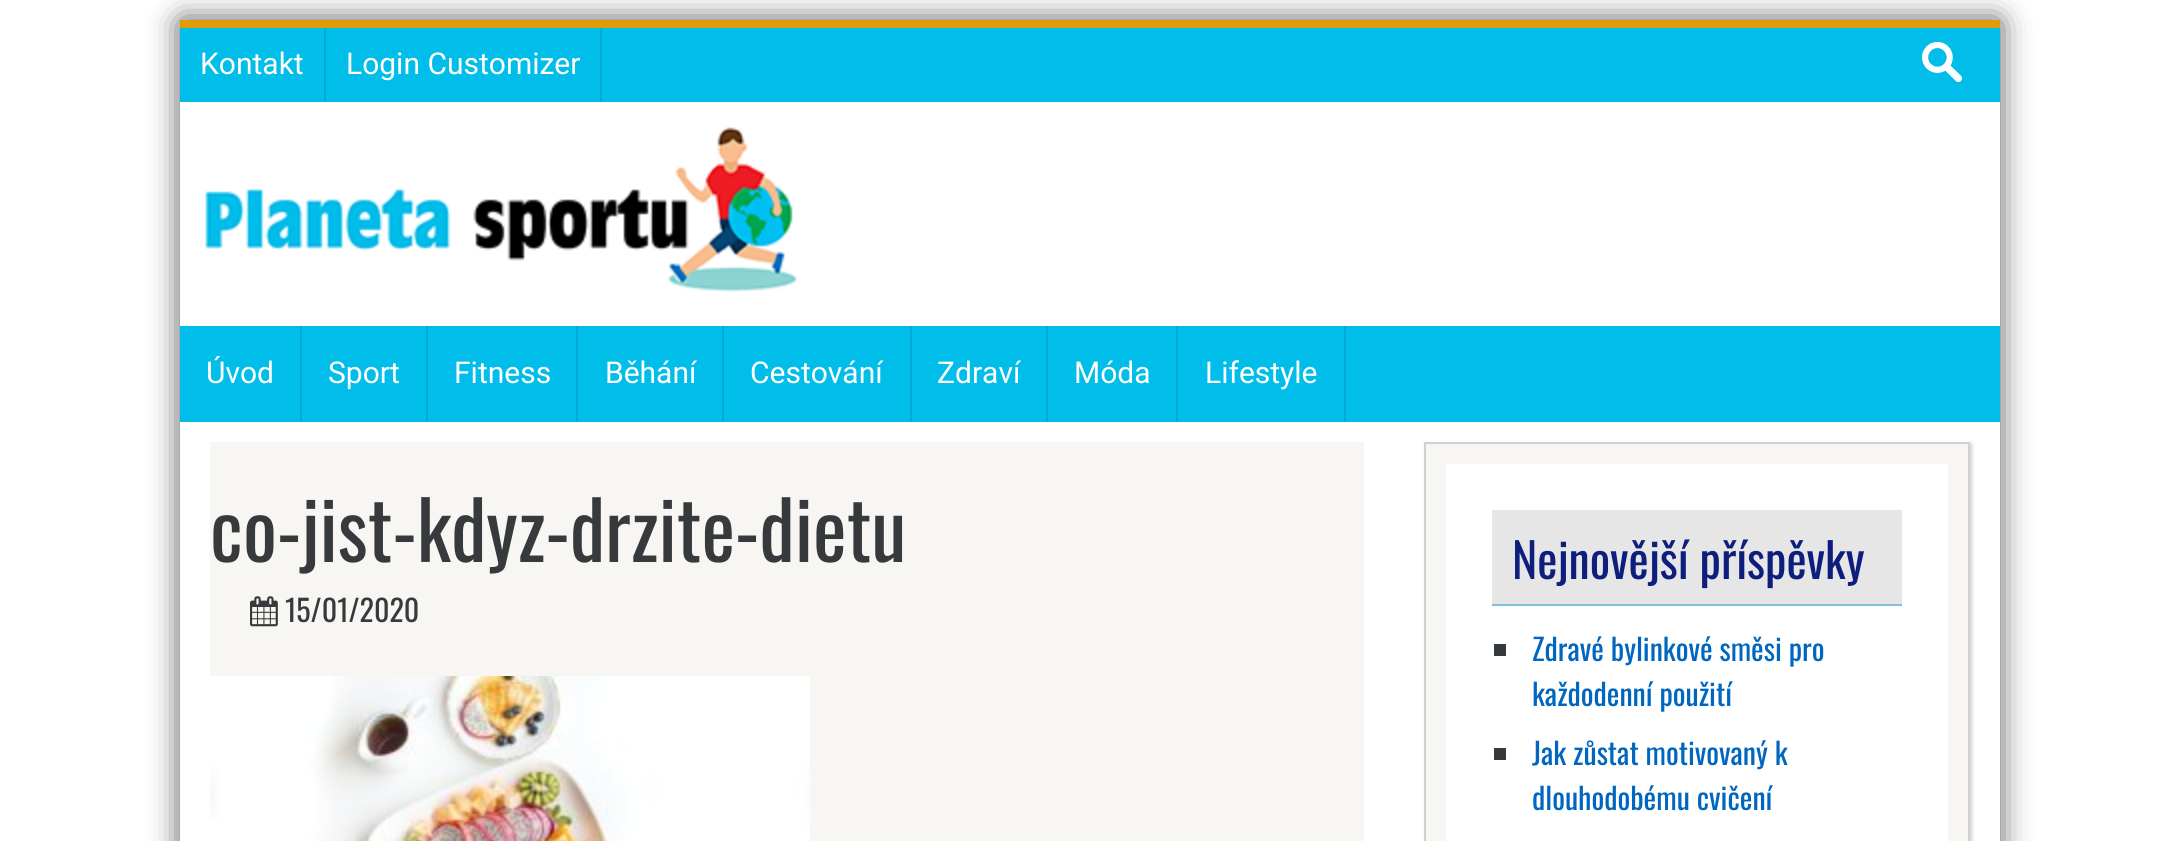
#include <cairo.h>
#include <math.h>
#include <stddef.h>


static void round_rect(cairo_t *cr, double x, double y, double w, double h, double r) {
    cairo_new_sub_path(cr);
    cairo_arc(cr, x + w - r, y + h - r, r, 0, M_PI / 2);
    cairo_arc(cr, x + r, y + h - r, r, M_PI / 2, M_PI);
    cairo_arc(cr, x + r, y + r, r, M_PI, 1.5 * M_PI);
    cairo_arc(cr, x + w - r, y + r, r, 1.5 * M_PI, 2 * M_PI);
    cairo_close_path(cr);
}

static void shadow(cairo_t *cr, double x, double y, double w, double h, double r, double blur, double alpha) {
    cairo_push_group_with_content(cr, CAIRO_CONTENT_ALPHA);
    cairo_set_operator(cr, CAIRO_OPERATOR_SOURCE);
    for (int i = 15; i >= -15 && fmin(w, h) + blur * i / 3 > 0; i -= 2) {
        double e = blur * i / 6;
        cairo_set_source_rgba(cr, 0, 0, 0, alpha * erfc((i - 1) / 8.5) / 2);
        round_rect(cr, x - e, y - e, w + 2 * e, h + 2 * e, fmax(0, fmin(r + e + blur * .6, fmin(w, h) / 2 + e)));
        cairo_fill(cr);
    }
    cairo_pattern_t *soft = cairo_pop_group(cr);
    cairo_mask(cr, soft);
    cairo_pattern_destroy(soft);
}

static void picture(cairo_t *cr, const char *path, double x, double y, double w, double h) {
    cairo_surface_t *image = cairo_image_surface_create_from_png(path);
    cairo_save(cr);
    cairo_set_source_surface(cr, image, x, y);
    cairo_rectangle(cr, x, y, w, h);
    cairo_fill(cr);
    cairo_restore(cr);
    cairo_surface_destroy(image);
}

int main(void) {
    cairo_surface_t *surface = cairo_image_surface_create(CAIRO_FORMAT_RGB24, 2179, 841);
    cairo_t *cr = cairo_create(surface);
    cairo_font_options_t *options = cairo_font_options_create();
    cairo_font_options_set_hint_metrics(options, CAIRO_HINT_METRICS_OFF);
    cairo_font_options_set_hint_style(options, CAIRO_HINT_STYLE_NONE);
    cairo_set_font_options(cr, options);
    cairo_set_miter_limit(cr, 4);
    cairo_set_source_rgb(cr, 1, 1, 1);
    cairo_paint(cr);
    cairo_save(cr);
    cairo_set_fill_rule(cr, CAIRO_FILL_RULE_EVEN_ODD);
    cairo_new_path(cr);
    cairo_move_to(cr, 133, 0);
    cairo_line_to(cr, 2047, 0);
    cairo_line_to(cr, 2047, 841);
    cairo_line_to(cr, 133, 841);
    cairo_close_path(cr);
    cairo_move_to(cr, 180, 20);
    cairo_line_to(cr, 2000, 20);
    cairo_line_to(cr, 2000, 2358);
    cairo_line_to(cr, 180, 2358);
    cairo_close_path(cr);
    cairo_clip(cr);
    cairo_set_source_rgb(cr, 0, 0, 0);
    shadow(cr, 182, 22, 1816, 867, 0, 16, 0.75);
    cairo_restore(cr);
    cairo_set_source_rgb(cr, 0.878, 0.612, 0.035);
    cairo_rectangle(cr, 180, 20, 1820, 8);
    cairo_fill(cr);
    cairo_set_source_rgb(cr, 0.004, 0.741, 0.914);
    cairo_rectangle(cr, 180, 28, 1820, 74);
    cairo_fill(cr);
    cairo_set_source_rgb(cr, 0.004, 0.667, 0.824);
    cairo_rectangle(cr, 324, 28, 2, 74);
    cairo_fill(cr);
    cairo_select_font_face(cr, "Roboto", CAIRO_FONT_SLANT_NORMAL, CAIRO_FONT_WEIGHT_NORMAL);
    cairo_set_font_size(cr, 30);
    cairo_set_source_rgb(cr, 1, 1, 1);
    cairo_move_to(cr, 200, 74);
    cairo_show_text(cr, "Kontakt");
    cairo_set_source_rgb(cr, 0.004, 0.667, 0.824);
    cairo_rectangle(cr, 600, 28, 2, 74);
    cairo_fill(cr);
    cairo_set_source_rgb(cr, 1, 1, 1);
    cairo_move_to(cr, 346, 74);
    cairo_show_text(cr, "Login Customizer");
    picture(cr, "img1.png", 1922, 42, 40, 40);
    picture(cr, "img2.png", 205, 127, 592, 166);
    cairo_set_source_rgb(cr, 0.004, 0.741, 0.914);
    cairo_rectangle(cr, 180, 326, 1820, 96);
    cairo_fill(cr);
    cairo_set_source_rgb(cr, 0.004, 0.667, 0.824);
    cairo_rectangle(cr, 300, 326, 2, 96);
    cairo_fill(cr);
    cairo_set_source_rgb(cr, 1, 1, 1);
    cairo_move_to(cr, 206, 383);
    cairo_show_text(cr, "Úvod");
    cairo_set_source_rgb(cr, 0.004, 0.667, 0.824);
    cairo_rectangle(cr, 426, 326, 2, 96);
    cairo_fill(cr);
    cairo_set_source_rgb(cr, 1, 1, 1);
    cairo_move_to(cr, 328, 383);
    cairo_show_text(cr, "Sport");
    cairo_set_source_rgb(cr, 0.004, 0.667, 0.824);
    cairo_rectangle(cr, 576, 326, 2, 96);
    cairo_fill(cr);
    cairo_set_source_rgb(cr, 1, 1, 1);
    cairo_move_to(cr, 454, 383);
    cairo_show_text(cr, "Fitness");
    cairo_set_source_rgb(cr, 0.004, 0.667, 0.824);
    cairo_rectangle(cr, 722, 326, 2, 96);
    cairo_fill(cr);
    cairo_set_source_rgb(cr, 1, 1, 1);
    cairo_move_to(cr, 605, 383);
    cairo_show_text(cr, "Běhání");
    cairo_set_source_rgb(cr, 0.004, 0.667, 0.824);
    cairo_rectangle(cr, 910, 326, 2, 96);
    cairo_fill(cr);
    cairo_set_source_rgb(cr, 1, 1, 1);
    cairo_move_to(cr, 750, 383);
    cairo_show_text(cr, "Cestování");
    cairo_set_source_rgb(cr, 0.004, 0.667, 0.824);
    cairo_rectangle(cr, 1046, 326, 2, 96);
    cairo_fill(cr);
    cairo_set_source_rgb(cr, 1, 1, 1);
    cairo_move_to(cr, 937, 383);
    cairo_show_text(cr, "Zdraví");
    cairo_set_source_rgb(cr, 0.004, 0.667, 0.824);
    cairo_rectangle(cr, 1176, 326, 2, 96);
    cairo_fill(cr);
    cairo_set_source_rgb(cr, 1, 1, 1);
    cairo_move_to(cr, 1074, 383);
    cairo_show_text(cr, "Móda");
    cairo_set_source_rgb(cr, 0.004, 0.667, 0.824);
    cairo_rectangle(cr, 1344, 326, 2, 96);
    cairo_fill(cr);
    cairo_set_source_rgb(cr, 1, 1, 1);
    cairo_move_to(cr, 1205, 383);
    cairo_show_text(cr, "Lifestyle");
    cairo_set_source_rgb(cr, 0.965, 0.961, 0.949);
    cairo_rectangle(cr, 210, 442, 1154, 399);
    cairo_fill(cr);
    cairo_select_font_face(cr, "Oswald", CAIRO_FONT_SLANT_NORMAL, CAIRO_FONT_WEIGHT_NORMAL);
    cairo_set_font_size(cr, 80);
    cairo_set_source_rgb(cr, 0.216, 0.227, 0.235);
    cairo_move_to(cr, 210, 562);
    cairo_show_text(cr, "co-jist-kdyz-drzite-dietu");
    picture(cr, "img3.png", 250, 596, 28, 31);
    cairo_set_font_size(cr, 30);
    cairo_move_to(cr, 285, 622);
    cairo_show_text(cr, "15/01/2020");
    picture(cr, "img4.png", 210, 676, 600, 165);
    cairo_set_source_rgb(cr, 0.808, 0.808, 0.808);
    shadow(cr, 1426, 444, 546, 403, 0, 2, 1);
    cairo_set_source_rgb(cr, 0.965, 0.961, 0.949);
    cairo_rectangle(cr, 1425, 443, 544, 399);
    cairo_fill_preserve(cr);
    cairo_set_source_rgb(cr, 0.82, 0.82, 0.82);
    cairo_stroke(cr);
    cairo_set_source_rgb(cr, 1, 1, 1);
    cairo_rectangle(cr, 1446, 464, 502, 377);
    cairo_fill(cr);
    cairo_set_source_rgb(cr, 0.902, 0.902, 0.902);
    cairo_rectangle(cr, 1492, 510, 410, 94);
    cairo_fill(cr);
    cairo_set_source_rgb(cr, 0.514, 0.745, 0.878);
    cairo_rectangle(cr, 1492, 604, 410, 2);
    cairo_fill(cr);
    cairo_set_font_size(cr, 48);
    cairo_set_source_rgb(cr, 0.055, 0.118, 0.49);
    cairo_move_to(cr, 1512, 579);
    cairo_show_text(cr, "Nejnovější příspěvky");
    cairo_set_source_rgb(cr, 0.216, 0.227, 0.235);
    cairo_rectangle(cr, 1494, 644, 12, 12);
    cairo_fill(cr);
    cairo_set_font_size(cr, 30);
    cairo_set_source_rgb(cr, 0, 0.4, 0.749);
    cairo_move_to(cr, 1532, 661);
    cairo_show_text(cr, "Zdravé bylinkové směsi pro");
    cairo_move_to(cr, 1532, 706);
    cairo_show_text(cr, "každodenní použití");
    cairo_set_source_rgb(cr, 0.216, 0.227, 0.235);
    cairo_rectangle(cr, 1494, 748, 12, 12);
    cairo_fill(cr);
    cairo_set_source_rgb(cr, 0, 0.4, 0.749);
    cairo_move_to(cr, 1532, 765);
    cairo_show_text(cr, "Jak zůstat motivovaný k");
    cairo_move_to(cr, 1532, 810);
    cairo_show_text(cr, "dlouhodobému cvičení");
    cairo_surface_write_to_png(surface, "page.png");
    cairo_font_options_destroy(options);
    cairo_destroy(cr);
    cairo_surface_destroy(surface);
    return 0;
}
